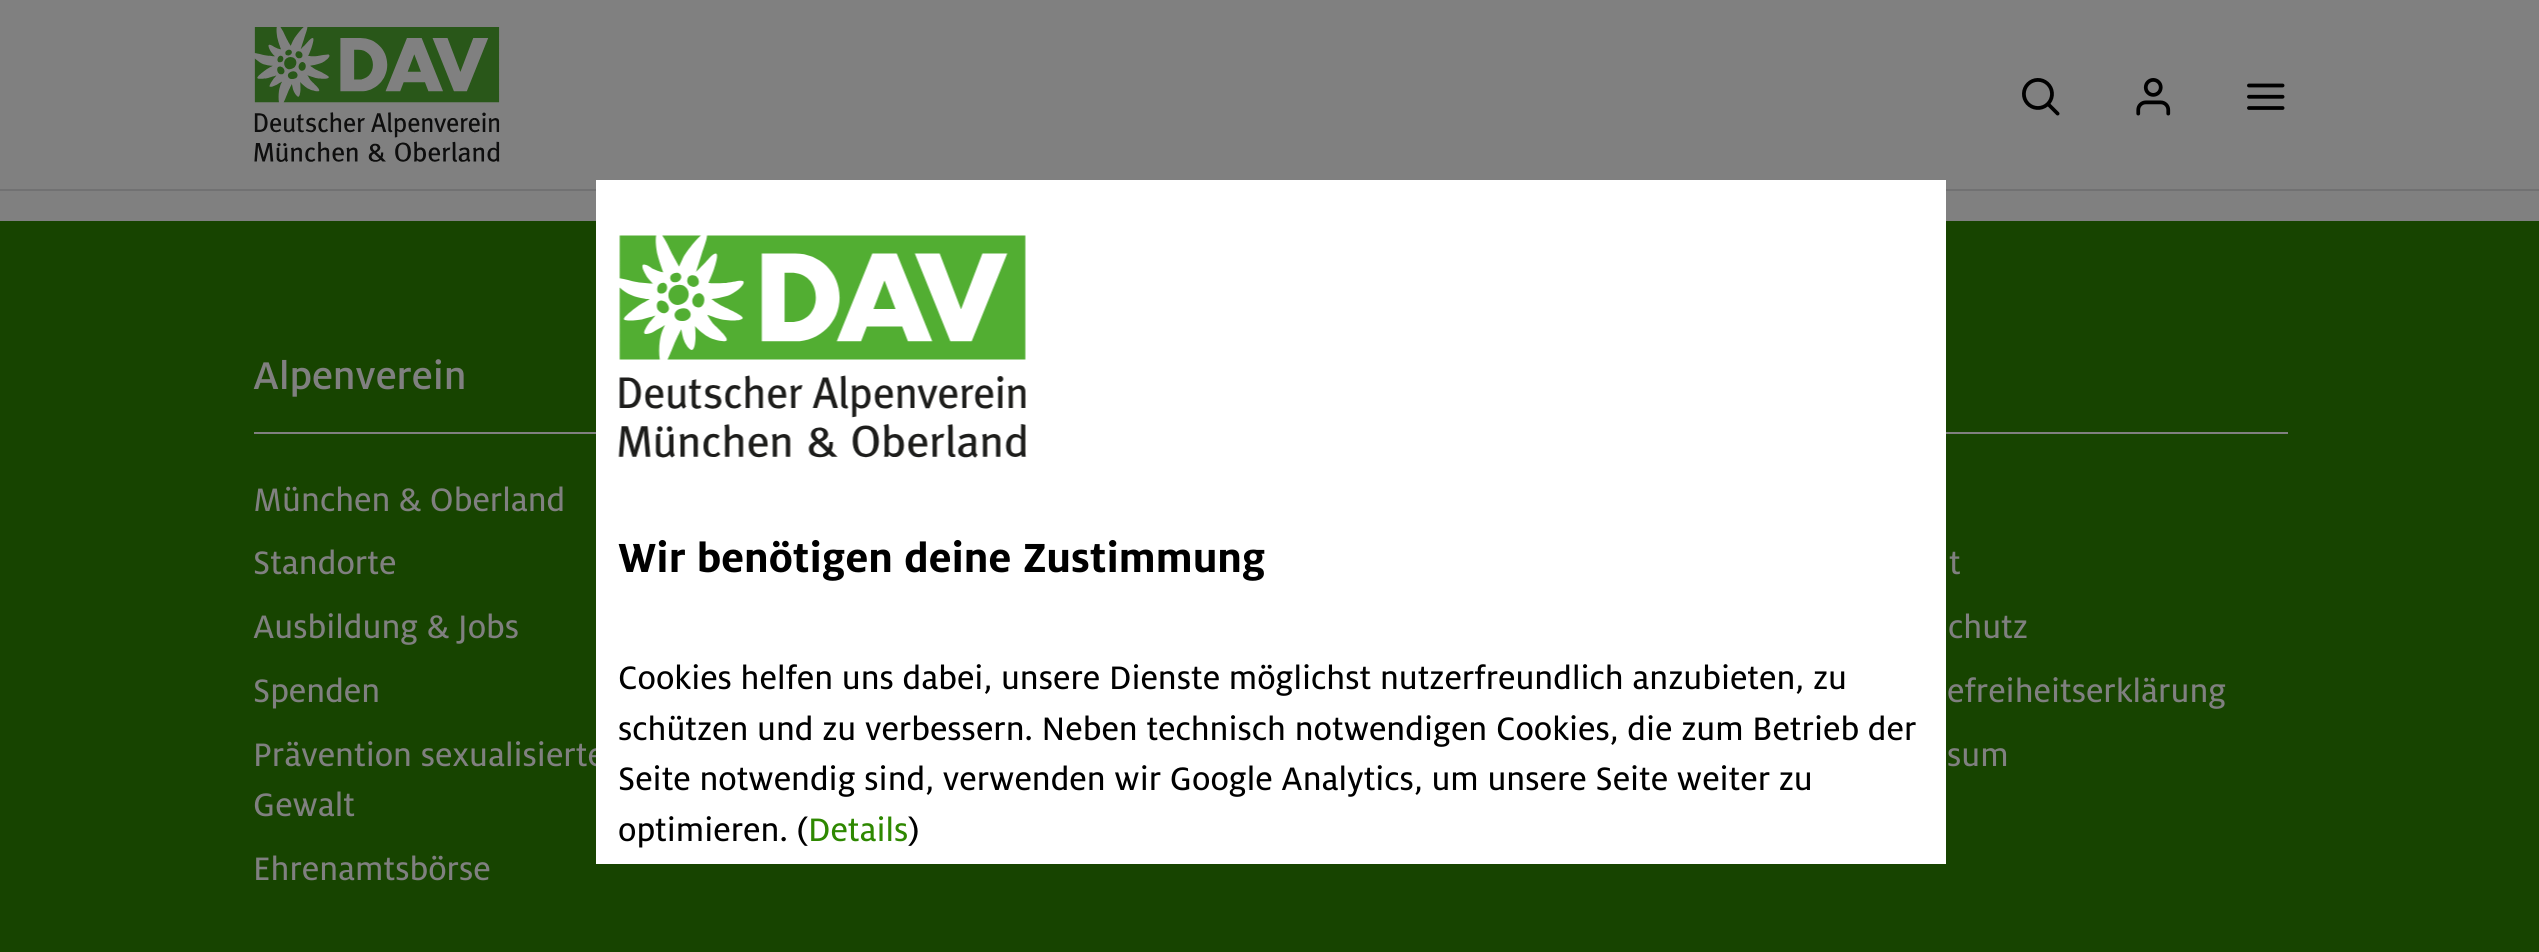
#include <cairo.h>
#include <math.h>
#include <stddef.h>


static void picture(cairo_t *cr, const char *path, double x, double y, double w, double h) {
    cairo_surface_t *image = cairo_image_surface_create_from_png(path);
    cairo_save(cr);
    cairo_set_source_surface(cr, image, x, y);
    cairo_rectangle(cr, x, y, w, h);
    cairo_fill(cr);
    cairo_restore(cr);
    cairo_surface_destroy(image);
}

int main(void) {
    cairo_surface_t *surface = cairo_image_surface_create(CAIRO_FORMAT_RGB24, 2539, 952);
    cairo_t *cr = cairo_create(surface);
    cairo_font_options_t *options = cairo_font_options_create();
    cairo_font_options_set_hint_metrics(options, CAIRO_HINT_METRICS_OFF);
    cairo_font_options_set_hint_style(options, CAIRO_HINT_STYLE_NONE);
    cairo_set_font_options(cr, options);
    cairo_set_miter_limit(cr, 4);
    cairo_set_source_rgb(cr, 0.502, 0.502, 0.502);
    cairo_paint(cr);
    cairo_set_source_rgb(cr, 0.443, 0.443, 0.447);
    cairo_rectangle(cr, 0, 189, 2539, 2);
    cairo_fill(cr);
    picture(cr, "img1.png", 254, 27, 246, 135);
    picture(cr, "img2.png", 2022, 78, 38, 38);
    picture(cr, "img3.png", 2136, 78, 35, 38);
    picture(cr, "img4.png", 2247, 83, 38, 27);
    cairo_set_source_rgb(cr, 0.09, 0.267, 0);
    cairo_rectangle(cr, 0, 221, 2539, 731);
    cairo_fill(cr);
    cairo_set_source_rgb(cr, 0.502, 0.502, 0.502);
    cairo_rectangle(cr, 254, 432, 342, 2);
    cairo_fill(cr);
    cairo_select_font_face(cr, "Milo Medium", CAIRO_FONT_SLANT_NORMAL, CAIRO_FONT_WEIGHT_NORMAL);
    cairo_set_font_size(cr, 42.75);
    cairo_move_to(cr, 253, 389);
    cairo_show_text(cr, "Alpenverein");
    cairo_select_font_face(cr, "Milo", CAIRO_FONT_SLANT_NORMAL, CAIRO_FONT_WEIGHT_NORMAL);
    cairo_set_font_size(cr, 36);
    cairo_move_to(cr, 253, 511);
    cairo_show_text(cr, "München & Oberland");
    cairo_move_to(cr, 253, 574);
    cairo_show_text(cr, "Standorte");
    cairo_move_to(cr, 253, 638);
    cairo_show_text(cr, "Ausbildung & Jobs");
    cairo_move_to(cr, 253, 702);
    cairo_show_text(cr, "Spenden");
    cairo_move_to(cr, 253, 766);
    cairo_show_text(cr, "Prävention sexualisierte");
    cairo_move_to(cr, 253, 816);
    cairo_show_text(cr, "Gewalt");
    cairo_move_to(cr, 253, 880);
    cairo_show_text(cr, "Ehrenamtsbörse");
    cairo_rectangle(cr, 1946, 432, 342, 2);
    cairo_fill(cr);
    cairo_move_to(cr, 1949, 574);
    cairo_show_text(cr, "t");
    cairo_move_to(cr, 1948, 638);
    cairo_show_text(cr, "chutz");
    cairo_move_to(cr, 1947, 702);
    cairo_show_text(cr, "efreiheitserklärung");
    cairo_move_to(cr, 1947, 766);
    cairo_show_text(cr, "sum");
    cairo_set_source_rgb(cr, 1, 1, 1);
    cairo_rectangle(cr, 596, 180, 1350, 684);
    cairo_fill(cr);
    picture(cr, "img5.png", 618, 235, 409, 223);
    cairo_select_font_face(cr, "Milo", CAIRO_FONT_SLANT_NORMAL, CAIRO_FONT_WEIGHT_BOLD);
    cairo_set_font_size(cr, 45);
    cairo_set_source_rgb(cr, 0, 0, 0);
    cairo_move_to(cr, 618, 572);
    cairo_show_text(cr, "Wir benötigen deine Zustimmung");
    cairo_select_font_face(cr, "Milo", CAIRO_FONT_SLANT_NORMAL, CAIRO_FONT_WEIGHT_NORMAL);
    cairo_set_font_size(cr, 36);
    cairo_move_to(cr, 618, 689);
    cairo_show_text(cr, "Cookies helfen uns dabei, unsere Dienste möglichst nutzerfreundlich anzubieten, zu");
    cairo_move_to(cr, 618, 740);
    cairo_show_text(cr, "schützen und zu verbessern. Neben technisch notwendigen Cookies, die zum Betrieb der");
    cairo_move_to(cr, 618, 790);
    cairo_show_text(cr, "Seite notwendig sind, verwenden wir Google Analytics, um unsere Seite weiter zu");
    cairo_move_to(cr, 618, 841);
    cairo_show_text(cr, "optimieren. (");
    cairo_set_source_rgb(cr, 0.18, 0.533, 0);
    cairo_move_to(cr, 808, 841);
    cairo_show_text(cr, "Details");
    cairo_set_source_rgb(cr, 0, 0, 0);
    cairo_move_to(cr, 908, 841);
    cairo_show_text(cr, ")");
    cairo_surface_write_to_png(surface, "page.png");
    cairo_font_options_destroy(options);
    cairo_destroy(cr);
    cairo_surface_destroy(surface);
    return 0;
}
